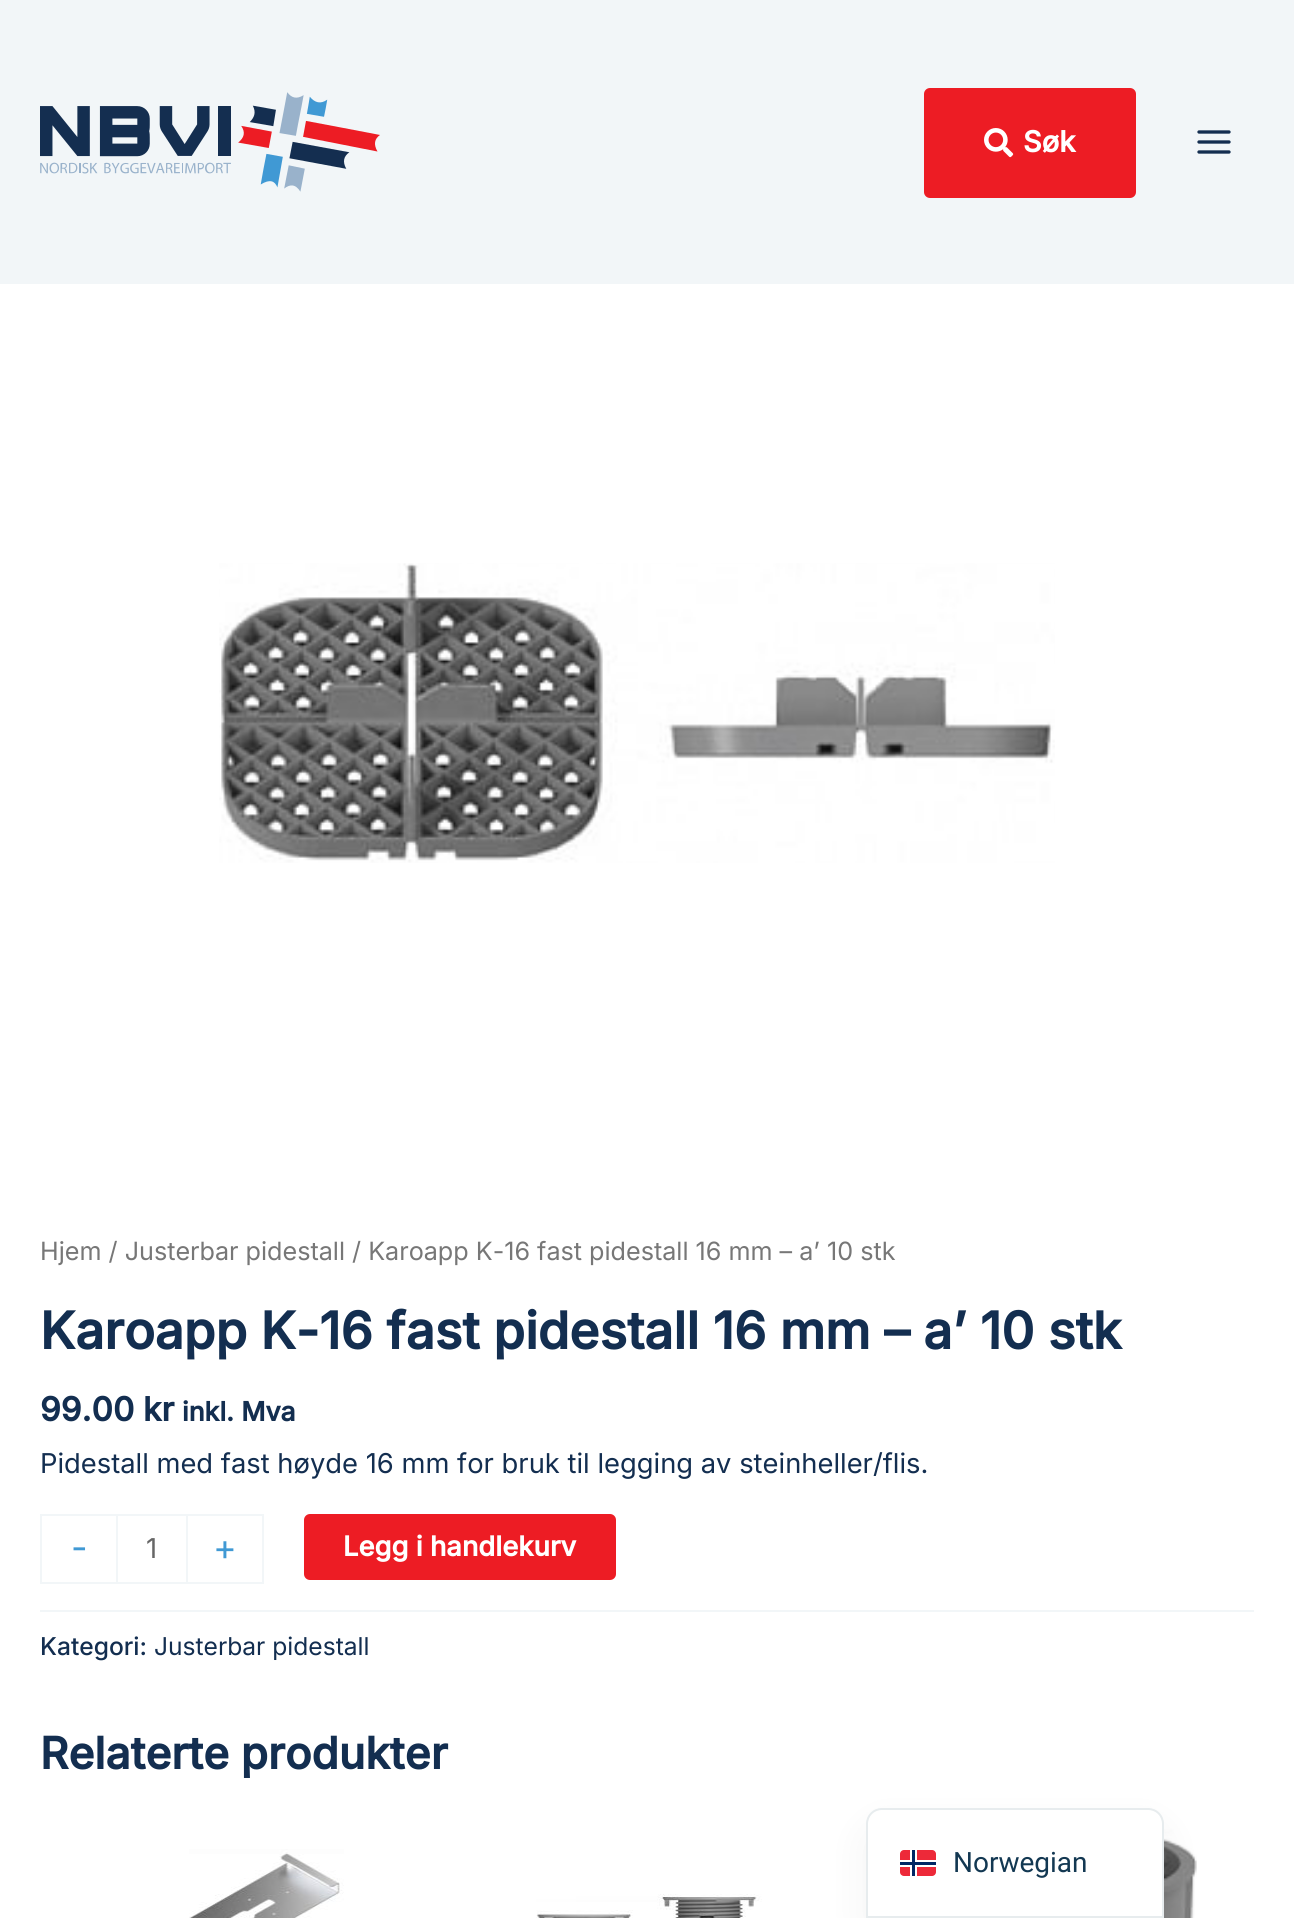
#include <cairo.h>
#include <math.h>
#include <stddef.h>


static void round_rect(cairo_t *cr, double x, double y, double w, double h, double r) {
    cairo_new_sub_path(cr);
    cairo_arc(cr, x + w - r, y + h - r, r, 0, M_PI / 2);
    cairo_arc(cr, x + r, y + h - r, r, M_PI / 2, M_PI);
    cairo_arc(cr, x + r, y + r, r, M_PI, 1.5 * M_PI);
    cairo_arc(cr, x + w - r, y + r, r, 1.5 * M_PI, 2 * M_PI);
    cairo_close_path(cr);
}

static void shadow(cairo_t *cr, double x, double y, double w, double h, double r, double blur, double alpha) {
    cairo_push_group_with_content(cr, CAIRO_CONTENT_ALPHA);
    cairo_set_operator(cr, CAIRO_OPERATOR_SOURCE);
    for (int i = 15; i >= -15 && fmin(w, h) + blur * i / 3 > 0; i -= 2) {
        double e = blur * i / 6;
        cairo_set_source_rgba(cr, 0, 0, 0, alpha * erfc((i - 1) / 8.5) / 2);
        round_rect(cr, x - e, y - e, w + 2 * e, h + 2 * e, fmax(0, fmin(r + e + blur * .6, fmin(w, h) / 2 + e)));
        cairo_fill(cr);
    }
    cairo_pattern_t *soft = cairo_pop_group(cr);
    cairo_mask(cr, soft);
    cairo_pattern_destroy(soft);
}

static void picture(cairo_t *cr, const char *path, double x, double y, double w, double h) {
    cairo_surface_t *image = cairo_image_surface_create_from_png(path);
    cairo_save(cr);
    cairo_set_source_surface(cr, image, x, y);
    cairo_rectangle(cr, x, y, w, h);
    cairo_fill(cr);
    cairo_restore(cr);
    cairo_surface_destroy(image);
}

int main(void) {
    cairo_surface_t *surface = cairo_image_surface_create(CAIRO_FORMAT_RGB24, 1294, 1918);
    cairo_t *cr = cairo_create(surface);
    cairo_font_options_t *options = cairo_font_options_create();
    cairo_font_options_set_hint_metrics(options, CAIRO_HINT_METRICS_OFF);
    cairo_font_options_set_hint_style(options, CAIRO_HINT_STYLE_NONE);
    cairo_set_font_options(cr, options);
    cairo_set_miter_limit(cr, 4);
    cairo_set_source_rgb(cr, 1, 1, 1);
    cairo_paint(cr);
    cairo_set_source_rgb(cr, 0.949, 0.961, 0.969);
    cairo_rectangle(cr, 0, 0, 1294, 284);
    cairo_fill(cr);
    picture(cr, "img1.png", 40, 92, 340, 100);
    cairo_set_source_rgb(cr, 0.929, 0.11, 0.141);
    round_rect(cr, 924, 88, 212, 110, 6);
    cairo_fill(cr);
    picture(cr, "img2.png", 984, 128, 30, 30);
    cairo_select_font_face(cr, "Inter", CAIRO_FONT_SLANT_NORMAL, CAIRO_FONT_WEIGHT_BOLD);
    cairo_set_font_size(cr, 29);
    cairo_set_source_rgb(cr, 1, 1, 1);
    cairo_move_to(cr, 1023, 152);
    cairo_show_text(cr, "Søk");
    picture(cr, "img3.png", 1197, 130, 34, 24);
    picture(cr, "img4.png", 219, 563, 836, 300);
    cairo_select_font_face(cr, "Inter", CAIRO_FONT_SLANT_NORMAL, CAIRO_FONT_WEIGHT_NORMAL);
    cairo_set_font_size(cr, 25.15);
    cairo_set_source_rgb(cr, 0.467, 0.467, 0.467);
    cairo_move_to(cr, 40, 1260);
    cairo_show_text(cr, "Hjem / Justerbar pidestall / Karoapp K-16 fast pidestall 16 mm – a’ 10 stk");
    cairo_select_font_face(cr, "Inter", CAIRO_FONT_SLANT_NORMAL, CAIRO_FONT_WEIGHT_BOLD);
    cairo_set_font_size(cr, 51.1);
    cairo_set_source_rgb(cr, 0.078, 0.18, 0.314);
    cairo_move_to(cr, 40, 1349);
    cairo_show_text(cr, "Karoapp K-16 fast pidestall 16 mm – a’ 10 stk");
    cairo_set_font_size(cr, 33);
    cairo_move_to(cr, 40, 1421);
    cairo_show_text(cr, "99.00 kr");
    cairo_set_font_size(cr, 26.5);
    cairo_move_to(cr, 182, 1421);
    cairo_show_text(cr, "inkl. Mva");
    cairo_select_font_face(cr, "Inter", CAIRO_FONT_SLANT_NORMAL, CAIRO_FONT_WEIGHT_NORMAL);
    cairo_set_font_size(cr, 27.35);
    cairo_move_to(cr, 40, 1473);
    cairo_show_text(cr, "Pidestall med fast høyde 16 mm for bruk til legging av steinheller/flis.");
    cairo_set_source_rgb(cr, 0.949, 0.961, 0.969);
    cairo_rectangle(cr, 40, 1514, 76, 2);
    cairo_fill(cr);
    cairo_rectangle(cr, 40, 1582, 76, 2);
    cairo_fill(cr);
    cairo_rectangle(cr, 40, 1514, 2, 70);
    cairo_fill(cr);
    cairo_set_font_size(cr, 36);
    cairo_set_source_rgb(cr, 0.251, 0.6, 0.831);
    cairo_move_to(cr, 71, 1560);
    cairo_show_text(cr, "-");
    cairo_rectangle(cr, 117, 1515, 70, 68);
    cairo_set_source_rgb(cr, 0.949, 0.961, 0.969);
    cairo_stroke(cr);
    cairo_set_font_size(cr, 27.35);
    cairo_set_source_rgb(cr, 0.4, 0.4, 0.4);
    cairo_move_to(cr, 146, 1558);
    cairo_show_text(cr, "1");
    cairo_set_source_rgb(cr, 0.949, 0.961, 0.969);
    cairo_rectangle(cr, 188, 1514, 76, 2);
    cairo_fill(cr);
    cairo_rectangle(cr, 262, 1514, 2, 70);
    cairo_fill(cr);
    cairo_rectangle(cr, 188, 1582, 76, 2);
    cairo_fill(cr);
    cairo_set_font_size(cr, 36);
    cairo_set_source_rgb(cr, 0.251, 0.6, 0.831);
    cairo_move_to(cr, 213, 1560);
    cairo_show_text(cr, "+");
    cairo_set_source_rgb(cr, 0.929, 0.11, 0.141);
    round_rect(cr, 304, 1514, 312, 66, 6);
    cairo_fill(cr);
    cairo_select_font_face(cr, "Inter", CAIRO_FONT_SLANT_NORMAL, CAIRO_FONT_WEIGHT_BOLD);
    cairo_set_font_size(cr, 27.35);
    cairo_set_source_rgb(cr, 1, 1, 1);
    cairo_move_to(cr, 343, 1556);
    cairo_show_text(cr, "Legg i handlekurv");
    cairo_set_source_rgb(cr, 0.949, 0.961, 0.969);
    cairo_rectangle(cr, 40, 1610, 1214, 2);
    cairo_fill(cr);
    cairo_select_font_face(cr, "Inter Medium", CAIRO_FONT_SLANT_NORMAL, CAIRO_FONT_WEIGHT_NORMAL);
    cairo_set_font_size(cr, 24.6);
    cairo_set_source_rgb(cr, 0.078, 0.18, 0.314);
    cairo_move_to(cr, 40, 1655);
    cairo_show_text(cr, "Kategori:");
    cairo_select_font_face(cr, "Inter", CAIRO_FONT_SLANT_NORMAL, CAIRO_FONT_WEIGHT_NORMAL);
    cairo_move_to(cr, 154, 1655);
    cairo_show_text(cr, "Justerbar pidestall");
    cairo_select_font_face(cr, "Inter", CAIRO_FONT_SLANT_NORMAL, CAIRO_FONT_WEIGHT_BOLD);
    cairo_set_font_size(cr, 44);
    cairo_move_to(cr, 40, 1769);
    cairo_show_text(cr, "Relaterte produkter");
    picture(cr, "img5.png", 189, 1849, 155, 69);
    picture(cr, "img6.png", 536, 1894, 226, 24);
    picture(cr, "img7.png", 1164, 1826, 33, 92);
    cairo_set_source_rgb(cr, 0, 0, 0);
    shadow(cr, 866, 1828, 298, 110, 16, 20, 0.05);
    cairo_set_source_rgb(cr, 1, 1, 1);
    cairo_new_path(cr);
    cairo_move_to(cr, 882, 1809);
    cairo_line_to(cr, 1148, 1809);
    cairo_curve_to(cr, 1156.5, 1809, 1163, 1815.5, 1163, 1824);
    cairo_line_to(cr, 1163, 1917);
    cairo_line_to(cr, 867, 1917);
    cairo_line_to(cr, 867, 1824);
    cairo_curve_to(cr, 867, 1815.5, 873.5, 1809, 882, 1809);
    cairo_close_path(cr);
    cairo_fill_preserve(cr);
    cairo_set_source_rgb(cr, 0.906, 0.922, 0.933);
    cairo_stroke(cr);
    cairo_set_source_rgb(cr, 0.929, 0.161, 0.224);
    round_rect(cr, 900, 1850, 36, 26, 4);
    cairo_fill(cr);
    cairo_set_source_rgb(cr, 1, 1, 1);
    cairo_rectangle(cr, 910, 1850, 7, 26);
    cairo_fill(cr);
    cairo_rectangle(cr, 900, 1860, 36, 7);
    cairo_fill(cr);
    cairo_set_source_rgb(cr, 0, 0.149, 0.392);
    cairo_rectangle(cr, 912, 1850, 3, 26);
    cairo_fill(cr);
    cairo_rectangle(cr, 900, 1862, 36, 3);
    cairo_fill(cr);
    cairo_select_font_face(cr, "Roboto", CAIRO_FONT_SLANT_NORMAL, CAIRO_FONT_WEIGHT_NORMAL);
    cairo_set_font_size(cr, 28);
    cairo_set_source_rgb(cr, 0.078, 0.22, 0.322);
    cairo_move_to(cr, 953, 1872);
    cairo_show_text(cr, "Norwegian");
    cairo_surface_write_to_png(surface, "page.png");
    cairo_font_options_destroy(options);
    cairo_destroy(cr);
    cairo_surface_destroy(surface);
    return 0;
}
